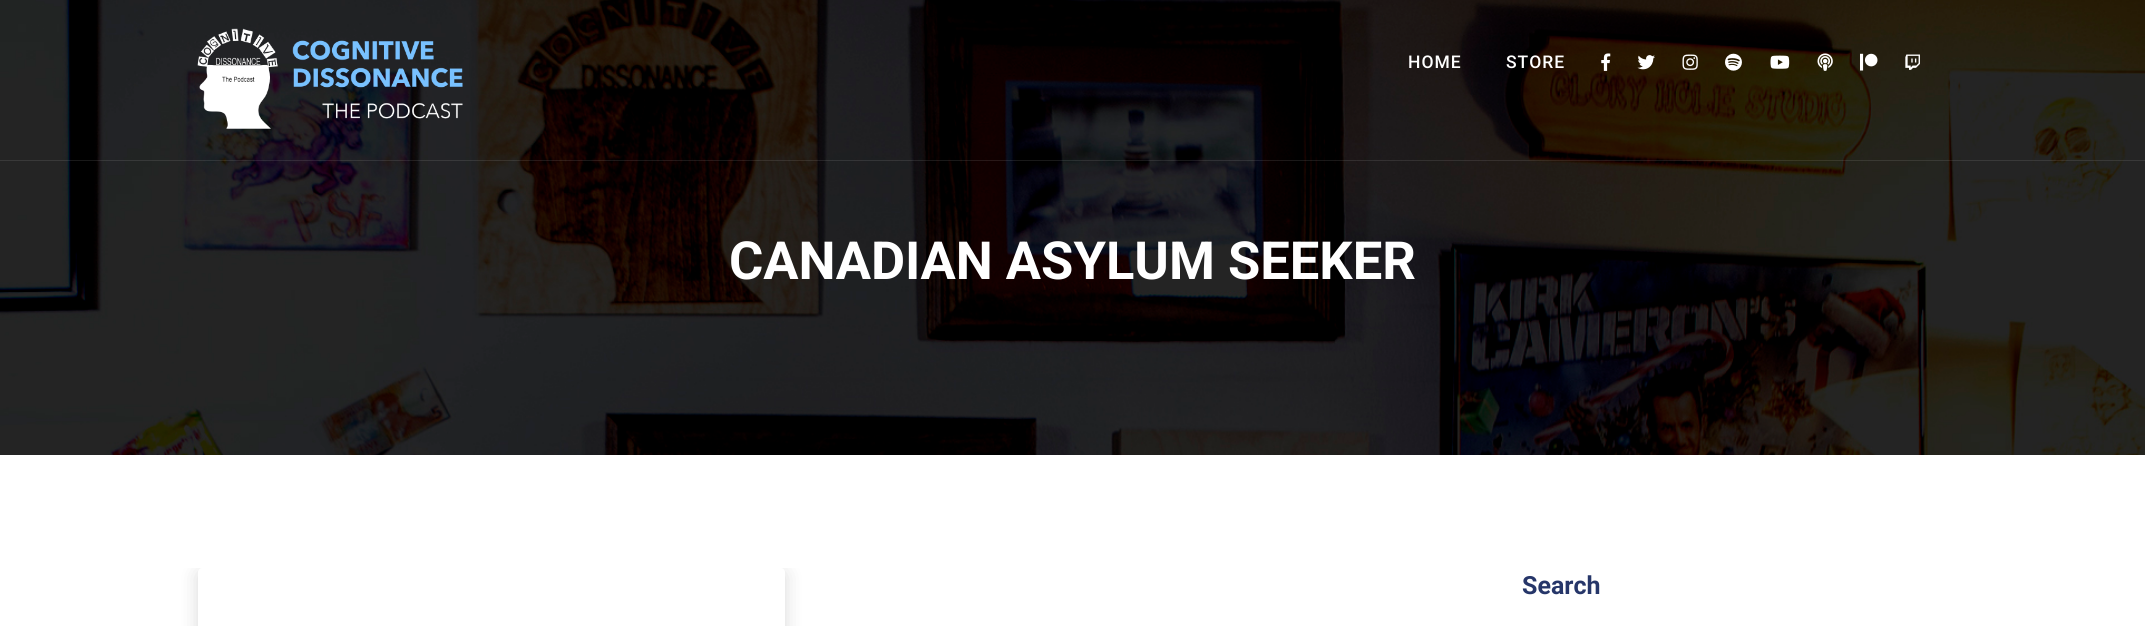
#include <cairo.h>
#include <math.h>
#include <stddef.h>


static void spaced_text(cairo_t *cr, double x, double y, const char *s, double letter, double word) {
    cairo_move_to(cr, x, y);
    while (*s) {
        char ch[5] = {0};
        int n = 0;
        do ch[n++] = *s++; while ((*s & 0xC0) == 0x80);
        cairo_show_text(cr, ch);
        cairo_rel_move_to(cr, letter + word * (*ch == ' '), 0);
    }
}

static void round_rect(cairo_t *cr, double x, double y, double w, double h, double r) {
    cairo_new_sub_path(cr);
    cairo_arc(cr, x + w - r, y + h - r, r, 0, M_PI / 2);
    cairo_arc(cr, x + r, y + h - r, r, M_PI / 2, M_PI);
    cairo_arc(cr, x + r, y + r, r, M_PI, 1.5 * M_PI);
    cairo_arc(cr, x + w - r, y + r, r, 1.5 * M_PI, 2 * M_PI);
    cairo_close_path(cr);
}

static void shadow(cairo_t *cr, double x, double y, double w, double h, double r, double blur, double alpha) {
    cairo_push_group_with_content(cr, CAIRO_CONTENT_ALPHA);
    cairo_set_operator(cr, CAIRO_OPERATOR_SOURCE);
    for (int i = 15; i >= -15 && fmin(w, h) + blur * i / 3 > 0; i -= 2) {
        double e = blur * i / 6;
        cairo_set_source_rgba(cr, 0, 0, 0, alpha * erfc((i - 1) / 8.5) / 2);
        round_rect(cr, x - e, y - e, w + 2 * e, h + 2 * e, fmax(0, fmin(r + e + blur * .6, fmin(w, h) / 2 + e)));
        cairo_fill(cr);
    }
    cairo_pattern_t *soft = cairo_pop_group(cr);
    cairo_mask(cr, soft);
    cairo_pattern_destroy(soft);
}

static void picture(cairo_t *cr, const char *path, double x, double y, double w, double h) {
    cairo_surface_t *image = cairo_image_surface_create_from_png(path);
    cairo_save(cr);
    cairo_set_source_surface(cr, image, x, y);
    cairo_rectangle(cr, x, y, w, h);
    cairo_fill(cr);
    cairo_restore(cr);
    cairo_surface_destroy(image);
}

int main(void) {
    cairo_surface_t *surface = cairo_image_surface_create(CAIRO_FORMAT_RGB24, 2145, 626);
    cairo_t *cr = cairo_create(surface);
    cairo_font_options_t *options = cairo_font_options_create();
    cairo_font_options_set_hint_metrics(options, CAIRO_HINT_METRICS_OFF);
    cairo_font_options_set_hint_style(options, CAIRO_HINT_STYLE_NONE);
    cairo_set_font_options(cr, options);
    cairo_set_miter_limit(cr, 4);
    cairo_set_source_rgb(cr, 1, 1, 1);
    cairo_paint(cr);
    picture(cr, "img10.png", 0, 0, 2145, 455);
    picture(cr, "img1.png", 197, 28, 266, 101);
    cairo_select_font_face(cr, "Roboto Medium", CAIRO_FONT_SLANT_NORMAL, CAIRO_FONT_WEIGHT_NORMAL);
    cairo_set_font_size(cr, 17.5);
    cairo_set_source_rgb(cr, 1, 1, 1);
    spaced_text(cr, 1408, 68, "HOME", 1, 0);
    spaced_text(cr, 1506, 68, "STORE", 1, 0);
    picture(cr, "img2.png", 1601, 53, 10, 18);
    picture(cr, "img3.png", 1637, 55, 18, 15);
    picture(cr, "img4.png", 1682, 54, 16, 16);
    picture(cr, "img5.png", 1725, 53, 17, 18);
    picture(cr, "img6.png", 1770, 55, 20, 14);
    picture(cr, "img7.png", 1817, 53, 16, 18);
    picture(cr, "img8.png", 1860, 53, 18, 18);
    picture(cr, "img9.png", 1905, 54, 15, 16);
    cairo_set_source_rgba(cr, 1, 1, 1, 0.1);
    cairo_rectangle(cr, 0, 160, 2145, 1);
    cairo_fill(cr);
    cairo_select_font_face(cr, "Roboto", CAIRO_FONT_SLANT_NORMAL, CAIRO_FONT_WEIGHT_BOLD);
    cairo_set_font_size(cr, 52.5);
    cairo_set_source_rgb(cr, 1, 1, 1);
    cairo_move_to(cr, 729, 279);
    cairo_show_text(cr, "CANADIAN ASYLUM SEEKER");
    cairo_save(cr);
    cairo_rectangle(cr, 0, 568, 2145, 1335);
    cairo_clip(cr);
    cairo_set_fill_rule(cr, CAIRO_FILL_RULE_EVEN_ODD);
    cairo_new_path(cr);
    cairo_move_to(cr, 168, 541);
    cairo_line_to(cr, 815, 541);
    cairo_line_to(cr, 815, 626);
    cairo_line_to(cr, 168, 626);
    cairo_close_path(cr);
    cairo_move_to(cr, 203, 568);
    cairo_line_to(cr, 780, 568);
    cairo_curve_to(cr, 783, 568, 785, 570, 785, 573);
    cairo_line_to(cr, 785, 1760);
    cairo_curve_to(cr, 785, 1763, 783, 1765, 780, 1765);
    cairo_line_to(cr, 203, 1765);
    cairo_curve_to(cr, 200, 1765, 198, 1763, 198, 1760);
    cairo_line_to(cr, 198, 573);
    cairo_curve_to(cr, 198, 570, 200, 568, 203, 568);
    cairo_close_path(cr);
    cairo_clip(cr);
    cairo_set_source_rgb(cr, 0, 0, 0);
    shadow(cr, 198, 571, 587, 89, 5, 9.5, 0.15);
    cairo_restore(cr);
    cairo_set_font_size(cr, 25);
    cairo_set_source_rgb(cr, 0.149, 0.212, 0.412);
    cairo_move_to(cr, 1522, 594);
    cairo_show_text(cr, "Search");
    cairo_surface_write_to_png(surface, "page.png");
    cairo_font_options_destroy(options);
    cairo_destroy(cr);
    cairo_surface_destroy(surface);
    return 0;
}
